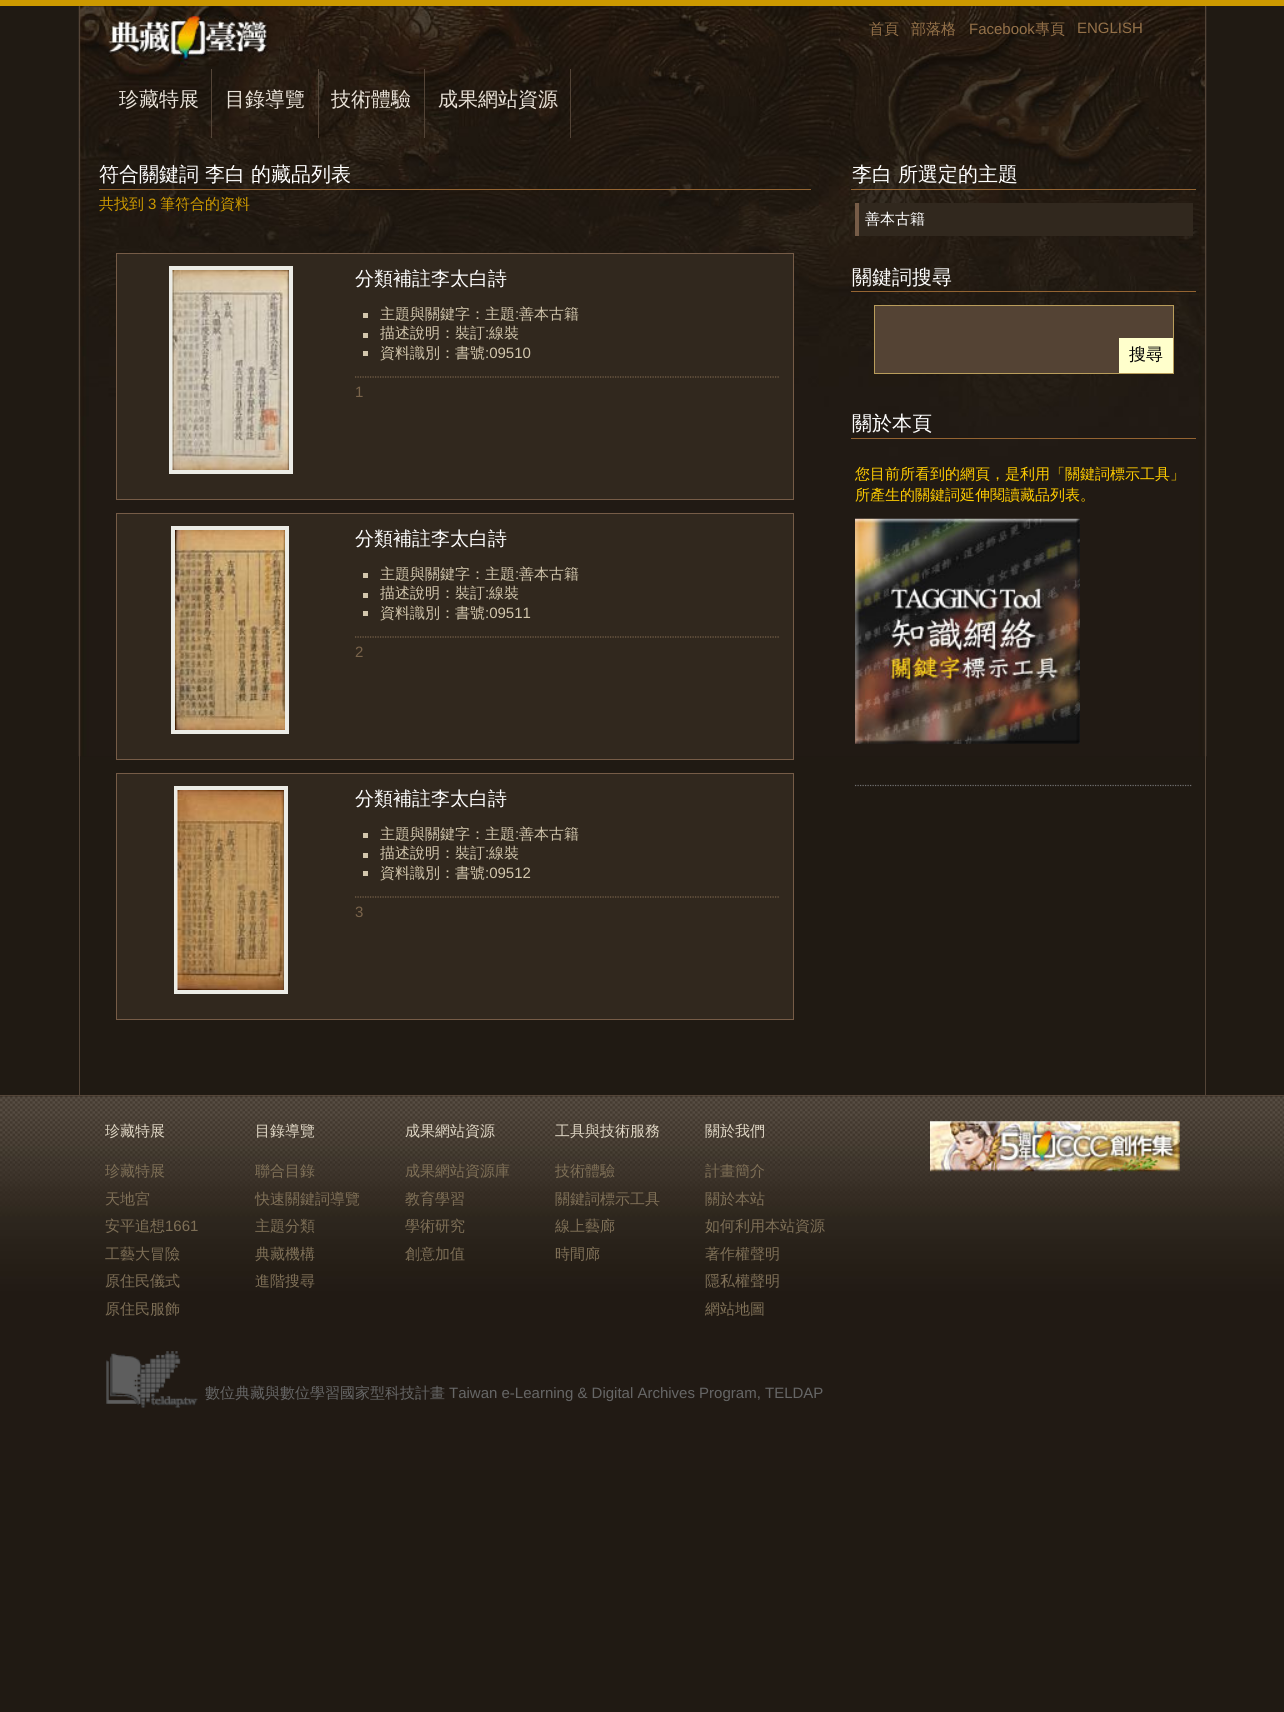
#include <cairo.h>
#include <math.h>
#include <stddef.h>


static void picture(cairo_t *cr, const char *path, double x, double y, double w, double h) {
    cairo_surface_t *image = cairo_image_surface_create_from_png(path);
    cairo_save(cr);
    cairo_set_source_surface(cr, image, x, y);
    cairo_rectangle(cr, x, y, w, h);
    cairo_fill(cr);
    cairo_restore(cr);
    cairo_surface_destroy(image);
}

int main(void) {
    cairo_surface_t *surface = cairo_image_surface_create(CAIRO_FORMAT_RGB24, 1284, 1712);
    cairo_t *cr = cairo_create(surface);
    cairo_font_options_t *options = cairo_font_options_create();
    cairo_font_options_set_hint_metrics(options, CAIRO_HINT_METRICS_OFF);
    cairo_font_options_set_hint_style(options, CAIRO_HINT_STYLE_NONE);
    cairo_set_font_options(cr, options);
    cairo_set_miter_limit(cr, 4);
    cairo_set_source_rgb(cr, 0.125, 0.102, 0.075);
    cairo_paint(cr);
    picture(cr, "img1.png", 78, 6, 1129, 751);
    cairo_set_source_rgb(cr, 0.8, 0.6, 0);
    cairo_rectangle(cr, 0, 0, 1284, 6);
    cairo_fill(cr);
    cairo_set_source_rgb(cr, 0.329, 0.271, 0.22);
    cairo_rectangle(cr, 1205, 6, 1, 125);
    cairo_fill(cr);
    cairo_rectangle(cr, 79, 6, 1, 125);
    cairo_fill(cr);
    cairo_select_font_face(cr, "WenQuanYi Zen Hei Medium", CAIRO_FONT_SLANT_NORMAL, CAIRO_FONT_WEIGHT_NORMAL);
    cairo_set_font_size(cr, 15);
    cairo_set_source_rgb(cr, 0.58, 0.443, 0.286);
    cairo_move_to(cr, 869, 34);
    cairo_show_text(cr, "首頁");
    cairo_move_to(cr, 911, 34);
    cairo_show_text(cr, "部落格");
    cairo_select_font_face(cr, "Liberation Sans", CAIRO_FONT_SLANT_NORMAL, CAIRO_FONT_WEIGHT_NORMAL);
    cairo_move_to(cr, 969, 34);
    cairo_show_text(cr, "Facebook");
    cairo_select_font_face(cr, "WenQuanYi Zen Hei Medium", CAIRO_FONT_SLANT_NORMAL, CAIRO_FONT_WEIGHT_NORMAL);
    cairo_move_to(cr, 1035, 34);
    cairo_show_text(cr, "專頁");
    cairo_select_font_face(cr, "Liberation Sans", CAIRO_FONT_SLANT_NORMAL, CAIRO_FONT_WEIGHT_NORMAL);
    cairo_move_to(cr, 1077, 33);
    cairo_show_text(cr, "ENGLISH");
    cairo_set_source_rgb(cr, 0.329, 0.271, 0.22);
    cairo_rectangle(cr, 211, 69, 1, 69);
    cairo_fill(cr);
    cairo_select_font_face(cr, "WenQuanYi Zen Hei Medium", CAIRO_FONT_SLANT_NORMAL, CAIRO_FONT_WEIGHT_NORMAL);
    cairo_set_font_size(cr, 20);
    cairo_set_source_rgb(cr, 0.914, 0.886, 0.847);
    cairo_move_to(cr, 119, 106);
    cairo_show_text(cr, "珍藏特展");
    cairo_set_source_rgb(cr, 0.329, 0.271, 0.22);
    cairo_rectangle(cr, 318, 69, 1, 69);
    cairo_fill(cr);
    cairo_set_source_rgb(cr, 0.914, 0.886, 0.847);
    cairo_move_to(cr, 225, 106);
    cairo_show_text(cr, "目錄導覽");
    cairo_set_source_rgb(cr, 0.329, 0.271, 0.22);
    cairo_rectangle(cr, 424, 69, 1, 69);
    cairo_fill(cr);
    cairo_set_source_rgb(cr, 0.914, 0.886, 0.847);
    cairo_move_to(cr, 331, 106);
    cairo_show_text(cr, "技術體驗");
    cairo_set_source_rgb(cr, 0.329, 0.271, 0.22);
    cairo_rectangle(cr, 570, 69, 1, 69);
    cairo_fill(cr);
    cairo_set_source_rgb(cr, 0.914, 0.886, 0.847);
    cairo_move_to(cr, 438, 106);
    cairo_show_text(cr, "成果網站資源");
    cairo_set_source_rgb(cr, 0.329, 0.271, 0.22);
    cairo_rectangle(cr, 1205, 138, 1, 957);
    cairo_fill(cr);
    cairo_rectangle(cr, 79, 138, 1, 957);
    cairo_fill(cr);
    cairo_set_source_rgb(cr, 0.58, 0.392, 0.196);
    cairo_rectangle(cr, 99, 189, 712, 1);
    cairo_fill(cr);
    cairo_set_source_rgb(cr, 1, 1, 1);
    cairo_move_to(cr, 99, 181);
    cairo_show_text(cr, "符合關鍵詞 李白 的藏品列表");
    cairo_set_font_size(cr, 15);
    cairo_set_source_rgb(cr, 0.8, 0.6, 0);
    cairo_move_to(cr, 99, 209);
    cairo_show_text(cr, "共找到");
    cairo_select_font_face(cr, "Liberation Sans", CAIRO_FONT_SLANT_NORMAL, CAIRO_FONT_WEIGHT_NORMAL);
    cairo_move_to(cr, 148, 209);
    cairo_show_text(cr, "3");
    cairo_select_font_face(cr, "WenQuanYi Zen Hei Medium", CAIRO_FONT_SLANT_NORMAL, CAIRO_FONT_WEIGHT_NORMAL);
    cairo_move_to(cr, 160, 209);
    cairo_show_text(cr, "筆符合的資料");
    cairo_set_source_rgb(cr, 0.192, 0.157, 0.118);
    cairo_rectangle(cr, 116.5, 253.5, 677, 246);
    cairo_fill_preserve(cr);
    cairo_set_source_rgb(cr, 0.463, 0.361, 0.278);
    cairo_set_line_width(cr, 1);
    cairo_stroke(cr);
    cairo_rectangle(cr, 171, 268, 120, 204);
    cairo_set_source_rgb(cr, 0.925, 0.922, 0.902);
    cairo_set_line_width(cr, 4);
    cairo_stroke(cr);
    picture(cr, "img2.png", 172, 270, 117, 200);
    cairo_set_font_size(cr, 19);
    cairo_set_source_rgb(cr, 1, 1, 1);
    cairo_move_to(cr, 355, 285);
    cairo_show_text(cr, "分類補註李太白詩");
    cairo_set_source_rgb(cr, 0.824, 0.776, 0.675);
    cairo_rectangle(cr, 363, 313, 5, 5);
    cairo_fill(cr);
    cairo_set_font_size(cr, 15);
    cairo_move_to(cr, 380, 319);
    cairo_show_text(cr, "主題與關鍵字：主題");
    cairo_select_font_face(cr, "Liberation Sans", CAIRO_FONT_SLANT_NORMAL, CAIRO_FONT_WEIGHT_NORMAL);
    cairo_move_to(cr, 515, 319);
    cairo_show_text(cr, ":");
    cairo_select_font_face(cr, "WenQuanYi Zen Hei Medium", CAIRO_FONT_SLANT_NORMAL, CAIRO_FONT_WEIGHT_NORMAL);
    cairo_move_to(cr, 519, 319);
    cairo_show_text(cr, "善本古籍");
    cairo_rectangle(cr, 363, 333, 5, 5);
    cairo_fill(cr);
    cairo_move_to(cr, 380, 338);
    cairo_show_text(cr, "描述說明：裝訂");
    cairo_select_font_face(cr, "Liberation Sans", CAIRO_FONT_SLANT_NORMAL, CAIRO_FONT_WEIGHT_NORMAL);
    cairo_move_to(cr, 485, 338);
    cairo_show_text(cr, ":");
    cairo_select_font_face(cr, "WenQuanYi Zen Hei Medium", CAIRO_FONT_SLANT_NORMAL, CAIRO_FONT_WEIGHT_NORMAL);
    cairo_move_to(cr, 489, 338);
    cairo_show_text(cr, "線裝");
    cairo_rectangle(cr, 363, 351, 5, 5);
    cairo_fill(cr);
    cairo_move_to(cr, 380, 358);
    cairo_show_text(cr, "資料識別：書號");
    cairo_select_font_face(cr, "Liberation Sans", CAIRO_FONT_SLANT_NORMAL, CAIRO_FONT_WEIGHT_NORMAL);
    cairo_move_to(cr, 485, 358);
    cairo_show_text(cr, ":09510");
    cairo_new_path(cr);
    cairo_move_to(cr, 355, 377);
    cairo_line_to(cr, 780, 377);
    cairo_set_source_rgb(cr, 0.478, 0.392, 0.294);
    cairo_set_line_width(cr, 1.2);
    cairo_set_dash(cr, (double[]){1.25, 1.25}, 2, 0);
    cairo_stroke(cr);
    cairo_move_to(cr, 355, 397);
    cairo_show_text(cr, "1");
    cairo_set_source_rgb(cr, 0.192, 0.157, 0.118);
    cairo_rectangle(cr, 116.5, 513.5, 677, 246);
    cairo_fill_preserve(cr);
    cairo_set_source_rgb(cr, 0.463, 0.361, 0.278);
    cairo_set_line_width(cr, 1);
    cairo_set_dash(cr, NULL, 0, 0);
    cairo_stroke(cr);
    cairo_rectangle(cr, 173, 528, 114, 204);
    cairo_set_source_rgb(cr, 0.925, 0.922, 0.902);
    cairo_set_line_width(cr, 4);
    cairo_stroke(cr);
    picture(cr, "img3.png", 175, 530, 110, 200);
    cairo_select_font_face(cr, "WenQuanYi Zen Hei Medium", CAIRO_FONT_SLANT_NORMAL, CAIRO_FONT_WEIGHT_NORMAL);
    cairo_set_font_size(cr, 19);
    cairo_set_source_rgb(cr, 1, 1, 1);
    cairo_move_to(cr, 355, 545);
    cairo_show_text(cr, "分類補註李太白詩");
    cairo_set_source_rgb(cr, 0.824, 0.776, 0.675);
    cairo_rectangle(cr, 363, 573, 5, 5);
    cairo_fill(cr);
    cairo_set_font_size(cr, 15);
    cairo_move_to(cr, 380, 579);
    cairo_show_text(cr, "主題與關鍵字：主題");
    cairo_select_font_face(cr, "Liberation Sans", CAIRO_FONT_SLANT_NORMAL, CAIRO_FONT_WEIGHT_NORMAL);
    cairo_move_to(cr, 515, 579);
    cairo_show_text(cr, ":");
    cairo_select_font_face(cr, "WenQuanYi Zen Hei Medium", CAIRO_FONT_SLANT_NORMAL, CAIRO_FONT_WEIGHT_NORMAL);
    cairo_move_to(cr, 519, 579);
    cairo_show_text(cr, "善本古籍");
    cairo_rectangle(cr, 363, 593, 5, 5);
    cairo_fill(cr);
    cairo_move_to(cr, 380, 598);
    cairo_show_text(cr, "描述說明：裝訂");
    cairo_select_font_face(cr, "Liberation Sans", CAIRO_FONT_SLANT_NORMAL, CAIRO_FONT_WEIGHT_NORMAL);
    cairo_move_to(cr, 485, 598);
    cairo_show_text(cr, ":");
    cairo_select_font_face(cr, "WenQuanYi Zen Hei Medium", CAIRO_FONT_SLANT_NORMAL, CAIRO_FONT_WEIGHT_NORMAL);
    cairo_move_to(cr, 489, 598);
    cairo_show_text(cr, "線裝");
    cairo_rectangle(cr, 363, 611, 5, 5);
    cairo_fill(cr);
    cairo_move_to(cr, 380, 618);
    cairo_show_text(cr, "資料識別：書號");
    cairo_select_font_face(cr, "Liberation Sans", CAIRO_FONT_SLANT_NORMAL, CAIRO_FONT_WEIGHT_NORMAL);
    cairo_move_to(cr, 485, 618);
    cairo_show_text(cr, ":09511");
    cairo_new_path(cr);
    cairo_move_to(cr, 355, 637);
    cairo_line_to(cr, 780, 637);
    cairo_set_source_rgb(cr, 0.478, 0.392, 0.294);
    cairo_set_line_width(cr, 1.2);
    cairo_set_dash(cr, (double[]){1.25, 1.25}, 2, 0);
    cairo_stroke(cr);
    cairo_move_to(cr, 355, 657);
    cairo_show_text(cr, "2");
    cairo_set_source_rgb(cr, 0.192, 0.157, 0.118);
    cairo_rectangle(cr, 116.5, 773.5, 677, 246);
    cairo_fill_preserve(cr);
    cairo_set_source_rgb(cr, 0.463, 0.361, 0.278);
    cairo_set_line_width(cr, 1);
    cairo_set_dash(cr, NULL, 0, 0);
    cairo_stroke(cr);
    cairo_rectangle(cr, 176, 788, 110, 204);
    cairo_set_source_rgb(cr, 0.925, 0.922, 0.902);
    cairo_set_line_width(cr, 4);
    cairo_stroke(cr);
    picture(cr, "img4.png", 177, 790, 107, 200);
    cairo_select_font_face(cr, "WenQuanYi Zen Hei Medium", CAIRO_FONT_SLANT_NORMAL, CAIRO_FONT_WEIGHT_NORMAL);
    cairo_set_font_size(cr, 19);
    cairo_set_source_rgb(cr, 1, 1, 1);
    cairo_move_to(cr, 355, 805);
    cairo_show_text(cr, "分類補註李太白詩");
    cairo_set_source_rgb(cr, 0.824, 0.776, 0.675);
    cairo_rectangle(cr, 363, 833, 5, 5);
    cairo_fill(cr);
    cairo_set_font_size(cr, 15);
    cairo_move_to(cr, 380, 839);
    cairo_show_text(cr, "主題與關鍵字：主題");
    cairo_select_font_face(cr, "Liberation Sans", CAIRO_FONT_SLANT_NORMAL, CAIRO_FONT_WEIGHT_NORMAL);
    cairo_move_to(cr, 515, 839);
    cairo_show_text(cr, ":");
    cairo_select_font_face(cr, "WenQuanYi Zen Hei Medium", CAIRO_FONT_SLANT_NORMAL, CAIRO_FONT_WEIGHT_NORMAL);
    cairo_move_to(cr, 519, 839);
    cairo_show_text(cr, "善本古籍");
    cairo_rectangle(cr, 363, 853, 5, 5);
    cairo_fill(cr);
    cairo_move_to(cr, 380, 858);
    cairo_show_text(cr, "描述說明：裝訂");
    cairo_select_font_face(cr, "Liberation Sans", CAIRO_FONT_SLANT_NORMAL, CAIRO_FONT_WEIGHT_NORMAL);
    cairo_move_to(cr, 485, 858);
    cairo_show_text(cr, ":");
    cairo_select_font_face(cr, "WenQuanYi Zen Hei Medium", CAIRO_FONT_SLANT_NORMAL, CAIRO_FONT_WEIGHT_NORMAL);
    cairo_move_to(cr, 489, 858);
    cairo_show_text(cr, "線裝");
    cairo_rectangle(cr, 363, 871, 5, 5);
    cairo_fill(cr);
    cairo_move_to(cr, 380, 878);
    cairo_show_text(cr, "資料識別：書號");
    cairo_select_font_face(cr, "Liberation Sans", CAIRO_FONT_SLANT_NORMAL, CAIRO_FONT_WEIGHT_NORMAL);
    cairo_move_to(cr, 485, 878);
    cairo_show_text(cr, ":09512");
    cairo_new_path(cr);
    cairo_move_to(cr, 355, 897);
    cairo_line_to(cr, 780, 897);
    cairo_set_source_rgb(cr, 0.478, 0.392, 0.294);
    cairo_set_line_width(cr, 1.2);
    cairo_set_dash(cr, (double[]){1.25, 1.25}, 2, 0);
    cairo_stroke(cr);
    cairo_move_to(cr, 355, 917);
    cairo_show_text(cr, "3");
    cairo_set_source_rgb(cr, 0.58, 0.392, 0.196);
    cairo_rectangle(cr, 851, 189, 345, 1);
    cairo_fill(cr);
    cairo_select_font_face(cr, "WenQuanYi Zen Hei Medium", CAIRO_FONT_SLANT_NORMAL, CAIRO_FONT_WEIGHT_NORMAL);
    cairo_set_font_size(cr, 20);
    cairo_set_source_rgb(cr, 1, 1, 1);
    cairo_move_to(cr, 852, 181);
    cairo_show_text(cr, "李白 所選定的主題");
    cairo_set_source_rgb(cr, 0.192, 0.157, 0.118);
    cairo_rectangle(cr, 859, 203, 334, 33);
    cairo_fill(cr);
    cairo_set_source_rgb(cr, 0.463, 0.361, 0.278);
    cairo_rectangle(cr, 855, 203, 4, 33);
    cairo_fill(cr);
    cairo_set_font_size(cr, 15);
    cairo_set_source_rgb(cr, 1, 1, 1);
    cairo_move_to(cr, 865, 224);
    cairo_show_text(cr, "善本古籍");
    cairo_set_source_rgb(cr, 0.58, 0.392, 0.196);
    cairo_rectangle(cr, 851, 291, 345, 1);
    cairo_fill(cr);
    cairo_set_font_size(cr, 20);
    cairo_set_source_rgb(cr, 1, 1, 1);
    cairo_move_to(cr, 852, 284);
    cairo_show_text(cr, "關鍵詞搜尋");
    cairo_set_source_rgb(cr, 0.329, 0.263, 0.204);
    cairo_rectangle(cr, 874.5, 305.5, 299, 68);
    cairo_fill_preserve(cr);
    cairo_set_source_rgb(cr, 0.725, 0.616, 0.357);
    cairo_set_line_width(cr, 1);
    cairo_set_dash(cr, NULL, 0, 0);
    cairo_stroke(cr);
    cairo_set_source_rgb(cr, 1, 1, 0.8);
    cairo_rectangle(cr, 1119, 338, 54, 35);
    cairo_fill(cr);
    cairo_set_font_size(cr, 17);
    cairo_set_source_rgb(cr, 0, 0, 0);
    cairo_move_to(cr, 1129, 360);
    cairo_show_text(cr, "搜尋");
    cairo_set_source_rgb(cr, 0.58, 0.392, 0.196);
    cairo_rectangle(cr, 851, 438, 345, 1);
    cairo_fill(cr);
    cairo_set_font_size(cr, 20);
    cairo_set_source_rgb(cr, 1, 1, 1);
    cairo_move_to(cr, 852, 430);
    cairo_show_text(cr, "關於本頁");
    cairo_set_font_size(cr, 15);
    cairo_set_source_rgb(cr, 1, 0.8, 0);
    cairo_move_to(cr, 855, 479);
    cairo_show_text(cr, "您目前所看到的網頁，是利用「關鍵詞標示工具」");
    cairo_move_to(cr, 855, 500);
    cairo_show_text(cr, "所產生的關鍵詞延伸閱讀藏品列表。");
    picture(cr, "img5.png", 855, 518, 225, 226);
    cairo_new_path(cr);
    cairo_move_to(cr, 855, 785.5);
    cairo_line_to(cr, 1192.5, 785.5);
    cairo_set_source_rgb(cr, 0.439, 0.439, 0.439);
    cairo_set_line_width(cr, 1.2);
    cairo_set_dash(cr, (double[]){1.25, 1.25}, 2, 0);
    cairo_stroke(cr);
    picture(cr, "img6.png", 0, 1096, 1284, 374);
    cairo_set_source_rgb(cr, 0.329, 0.271, 0.22);
    cairo_rectangle(cr, 0, 1095, 1284, 1);
    cairo_fill(cr);
    cairo_set_source_rgb(cr, 0.875, 0.839, 0.769);
    cairo_move_to(cr, 105, 1136);
    cairo_show_text(cr, "珍藏特展");
    cairo_set_source_rgb(cr, 0.494, 0.435, 0.337);
    cairo_move_to(cr, 105, 1176);
    cairo_show_text(cr, "珍藏特展");
    cairo_move_to(cr, 105, 1204);
    cairo_show_text(cr, "天地宮");
    cairo_move_to(cr, 105, 1231);
    cairo_show_text(cr, "安平追想");
    cairo_select_font_face(cr, "Liberation Sans", CAIRO_FONT_SLANT_NORMAL, CAIRO_FONT_WEIGHT_NORMAL);
    cairo_move_to(cr, 165, 1231);
    cairo_show_text(cr, "1661");
    cairo_select_font_face(cr, "WenQuanYi Zen Hei Medium", CAIRO_FONT_SLANT_NORMAL, CAIRO_FONT_WEIGHT_NORMAL);
    cairo_move_to(cr, 105, 1259);
    cairo_show_text(cr, "工藝大冒險");
    cairo_move_to(cr, 105, 1286);
    cairo_show_text(cr, "原住民儀式");
    cairo_move_to(cr, 105, 1314);
    cairo_show_text(cr, "原住民服飾");
    cairo_set_source_rgb(cr, 0.875, 0.839, 0.769);
    cairo_move_to(cr, 255, 1136);
    cairo_show_text(cr, "目錄導覽");
    cairo_set_source_rgb(cr, 0.494, 0.435, 0.337);
    cairo_move_to(cr, 255, 1176);
    cairo_show_text(cr, "聯合目錄");
    cairo_move_to(cr, 255, 1204);
    cairo_show_text(cr, "快速關鍵詞導覽");
    cairo_move_to(cr, 255, 1231);
    cairo_show_text(cr, "主題分類");
    cairo_move_to(cr, 255, 1259);
    cairo_show_text(cr, "典藏機構");
    cairo_move_to(cr, 255, 1286);
    cairo_show_text(cr, "進階搜尋");
    cairo_set_source_rgb(cr, 0.875, 0.839, 0.769);
    cairo_move_to(cr, 405, 1136);
    cairo_show_text(cr, "成果網站資源");
    cairo_set_source_rgb(cr, 0.494, 0.435, 0.337);
    cairo_move_to(cr, 405, 1176);
    cairo_show_text(cr, "成果網站資源庫");
    cairo_move_to(cr, 405, 1204);
    cairo_show_text(cr, "教育學習");
    cairo_move_to(cr, 405, 1231);
    cairo_show_text(cr, "學術研究");
    cairo_move_to(cr, 405, 1259);
    cairo_show_text(cr, "創意加值");
    cairo_set_source_rgb(cr, 0.875, 0.839, 0.769);
    cairo_move_to(cr, 555, 1136);
    cairo_show_text(cr, "工具與技術服務");
    cairo_set_source_rgb(cr, 0.494, 0.435, 0.337);
    cairo_move_to(cr, 555, 1176);
    cairo_show_text(cr, "技術體驗");
    cairo_move_to(cr, 555, 1204);
    cairo_show_text(cr, "關鍵詞標示工具");
    cairo_move_to(cr, 555, 1231);
    cairo_show_text(cr, "線上藝廊");
    cairo_move_to(cr, 555, 1259);
    cairo_show_text(cr, "時間廊");
    cairo_set_source_rgb(cr, 0.875, 0.839, 0.769);
    cairo_move_to(cr, 705, 1136);
    cairo_show_text(cr, "關於我們");
    cairo_set_source_rgb(cr, 0.494, 0.435, 0.337);
    cairo_move_to(cr, 705, 1176);
    cairo_show_text(cr, "計畫簡介");
    cairo_move_to(cr, 705, 1204);
    cairo_show_text(cr, "關於本站");
    cairo_move_to(cr, 705, 1231);
    cairo_show_text(cr, "如何利用本站資源");
    cairo_move_to(cr, 705, 1259);
    cairo_show_text(cr, "著作權聲明");
    cairo_move_to(cr, 705, 1286);
    cairo_show_text(cr, "隱私權聲明");
    cairo_move_to(cr, 705, 1314);
    cairo_show_text(cr, "網站地圖");
    picture(cr, "img7.png", 930, 1121, 250, 51);
    picture(cr, "img8.png", 106, 1351, 92, 57);
    cairo_set_source_rgb(cr, 0.4, 0.4, 0.4);
    cairo_move_to(cr, 205, 1398);
    cairo_show_text(cr, "數位典藏與數位學習國家型科技計畫");
    cairo_select_font_face(cr, "Liberation Sans", CAIRO_FONT_SLANT_NORMAL, CAIRO_FONT_WEIGHT_NORMAL);
    cairo_move_to(cr, 449, 1398);
    cairo_show_text(cr, "Taiwan e-Learning & Digital Archives Program, TELDAP");
    cairo_surface_write_to_png(surface, "page.png");
    cairo_font_options_destroy(options);
    cairo_destroy(cr);
    cairo_surface_destroy(surface);
    return 0;
}
